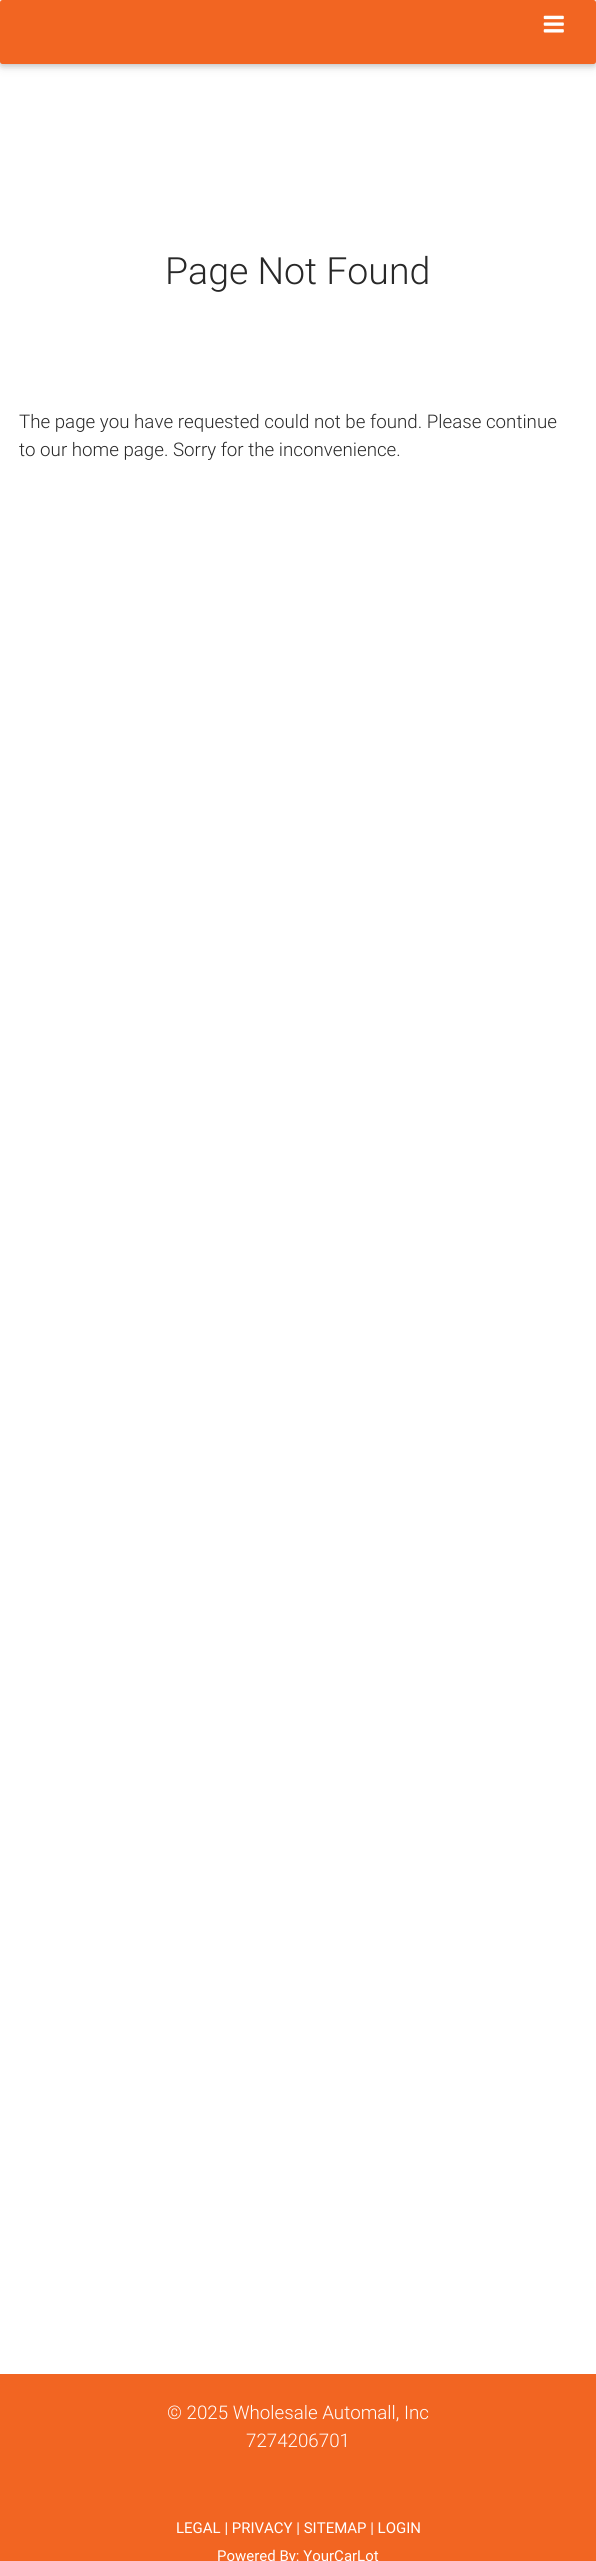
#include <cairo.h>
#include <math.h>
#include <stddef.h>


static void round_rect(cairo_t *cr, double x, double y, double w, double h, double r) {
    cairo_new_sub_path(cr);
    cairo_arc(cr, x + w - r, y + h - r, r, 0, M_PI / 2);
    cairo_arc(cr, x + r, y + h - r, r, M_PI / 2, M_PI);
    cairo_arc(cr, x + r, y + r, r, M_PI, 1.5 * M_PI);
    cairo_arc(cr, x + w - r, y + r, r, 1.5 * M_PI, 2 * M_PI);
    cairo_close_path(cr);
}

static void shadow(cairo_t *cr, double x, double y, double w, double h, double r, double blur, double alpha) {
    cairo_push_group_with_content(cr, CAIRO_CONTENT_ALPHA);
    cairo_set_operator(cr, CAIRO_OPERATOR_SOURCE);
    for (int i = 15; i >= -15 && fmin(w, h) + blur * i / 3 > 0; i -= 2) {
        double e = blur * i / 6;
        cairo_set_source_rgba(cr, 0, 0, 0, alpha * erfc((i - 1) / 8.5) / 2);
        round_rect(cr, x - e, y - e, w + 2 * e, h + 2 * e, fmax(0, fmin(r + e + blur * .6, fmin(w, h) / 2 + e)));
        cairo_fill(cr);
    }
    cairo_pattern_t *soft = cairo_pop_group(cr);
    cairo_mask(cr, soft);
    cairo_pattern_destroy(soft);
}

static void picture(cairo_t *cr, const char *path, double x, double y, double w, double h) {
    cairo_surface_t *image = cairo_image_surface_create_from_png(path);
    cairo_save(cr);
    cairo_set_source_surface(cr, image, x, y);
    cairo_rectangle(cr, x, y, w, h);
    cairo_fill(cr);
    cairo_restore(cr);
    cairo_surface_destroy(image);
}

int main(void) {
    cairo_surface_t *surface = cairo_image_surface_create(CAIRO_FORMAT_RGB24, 596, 2561);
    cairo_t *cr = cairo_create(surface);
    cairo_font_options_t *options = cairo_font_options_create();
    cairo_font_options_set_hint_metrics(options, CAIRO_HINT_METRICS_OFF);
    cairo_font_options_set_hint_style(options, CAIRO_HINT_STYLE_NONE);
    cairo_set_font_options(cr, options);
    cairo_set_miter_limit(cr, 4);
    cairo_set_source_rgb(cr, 1, 1, 1);
    cairo_paint(cr);
    cairo_set_source_rgb(cr, 0, 0, 0);
    shadow(cr, 0, 3, 596, 63, 2.5, 6, 0.12);
    shadow(cr, 0, 3, 596, 63, 2.5, 3, 0.16);
    cairo_set_source_rgb(cr, 0.949, 0.396, 0.133);
    round_rect(cr, 0, 0, 596, 64, 2.5);
    cairo_fill(cr);
    picture(cr, "img1.png", 543, 15, 21, 18);
    cairo_select_font_face(cr, "Roboto Light", CAIRO_FONT_SLANT_NORMAL, CAIRO_FONT_WEIGHT_NORMAL);
    cairo_set_font_size(cr, 37.5);
    cairo_set_source_rgb(cr, 0.157, 0.157, 0.157);
    cairo_move_to(cr, 165, 284);
    cairo_show_text(cr, "Page Not Found");
    cairo_set_font_size(cr, 18.75);
    cairo_move_to(cr, 19, 428);
    cairo_show_text(cr, "The page you have requested could not be found. Please continue");
    cairo_move_to(cr, 19, 456);
    cairo_show_text(cr, "to our home page. Sorry for the inconvenience.");
    cairo_set_source_rgb(cr, 0.949, 0.396, 0.133);
    cairo_rectangle(cr, 0, 2374, 596, 187);
    cairo_fill(cr);
    cairo_set_source_rgb(cr, 1, 1, 1);
    cairo_move_to(cr, 167, 2419);
    cairo_show_text(cr, "© 2025 Wholesale Automall, Inc");
    cairo_move_to(cr, 246, 2447);
    cairo_show_text(cr, "7274206701");
    cairo_select_font_face(cr, "Roboto", CAIRO_FONT_SLANT_NORMAL, CAIRO_FONT_WEIGHT_NORMAL);
    cairo_set_font_size(cr, 15);
    cairo_move_to(cr, 176, 2533);
    cairo_show_text(cr, "LEGAL | PRIVACY | SITEMAP | LOGIN");
    cairo_move_to(cr, 217, 2561);
    cairo_show_text(cr, "Powered By: YourCarLot");
    cairo_surface_write_to_png(surface, "page.png");
    cairo_font_options_destroy(options);
    cairo_destroy(cr);
    cairo_surface_destroy(surface);
    return 0;
}
